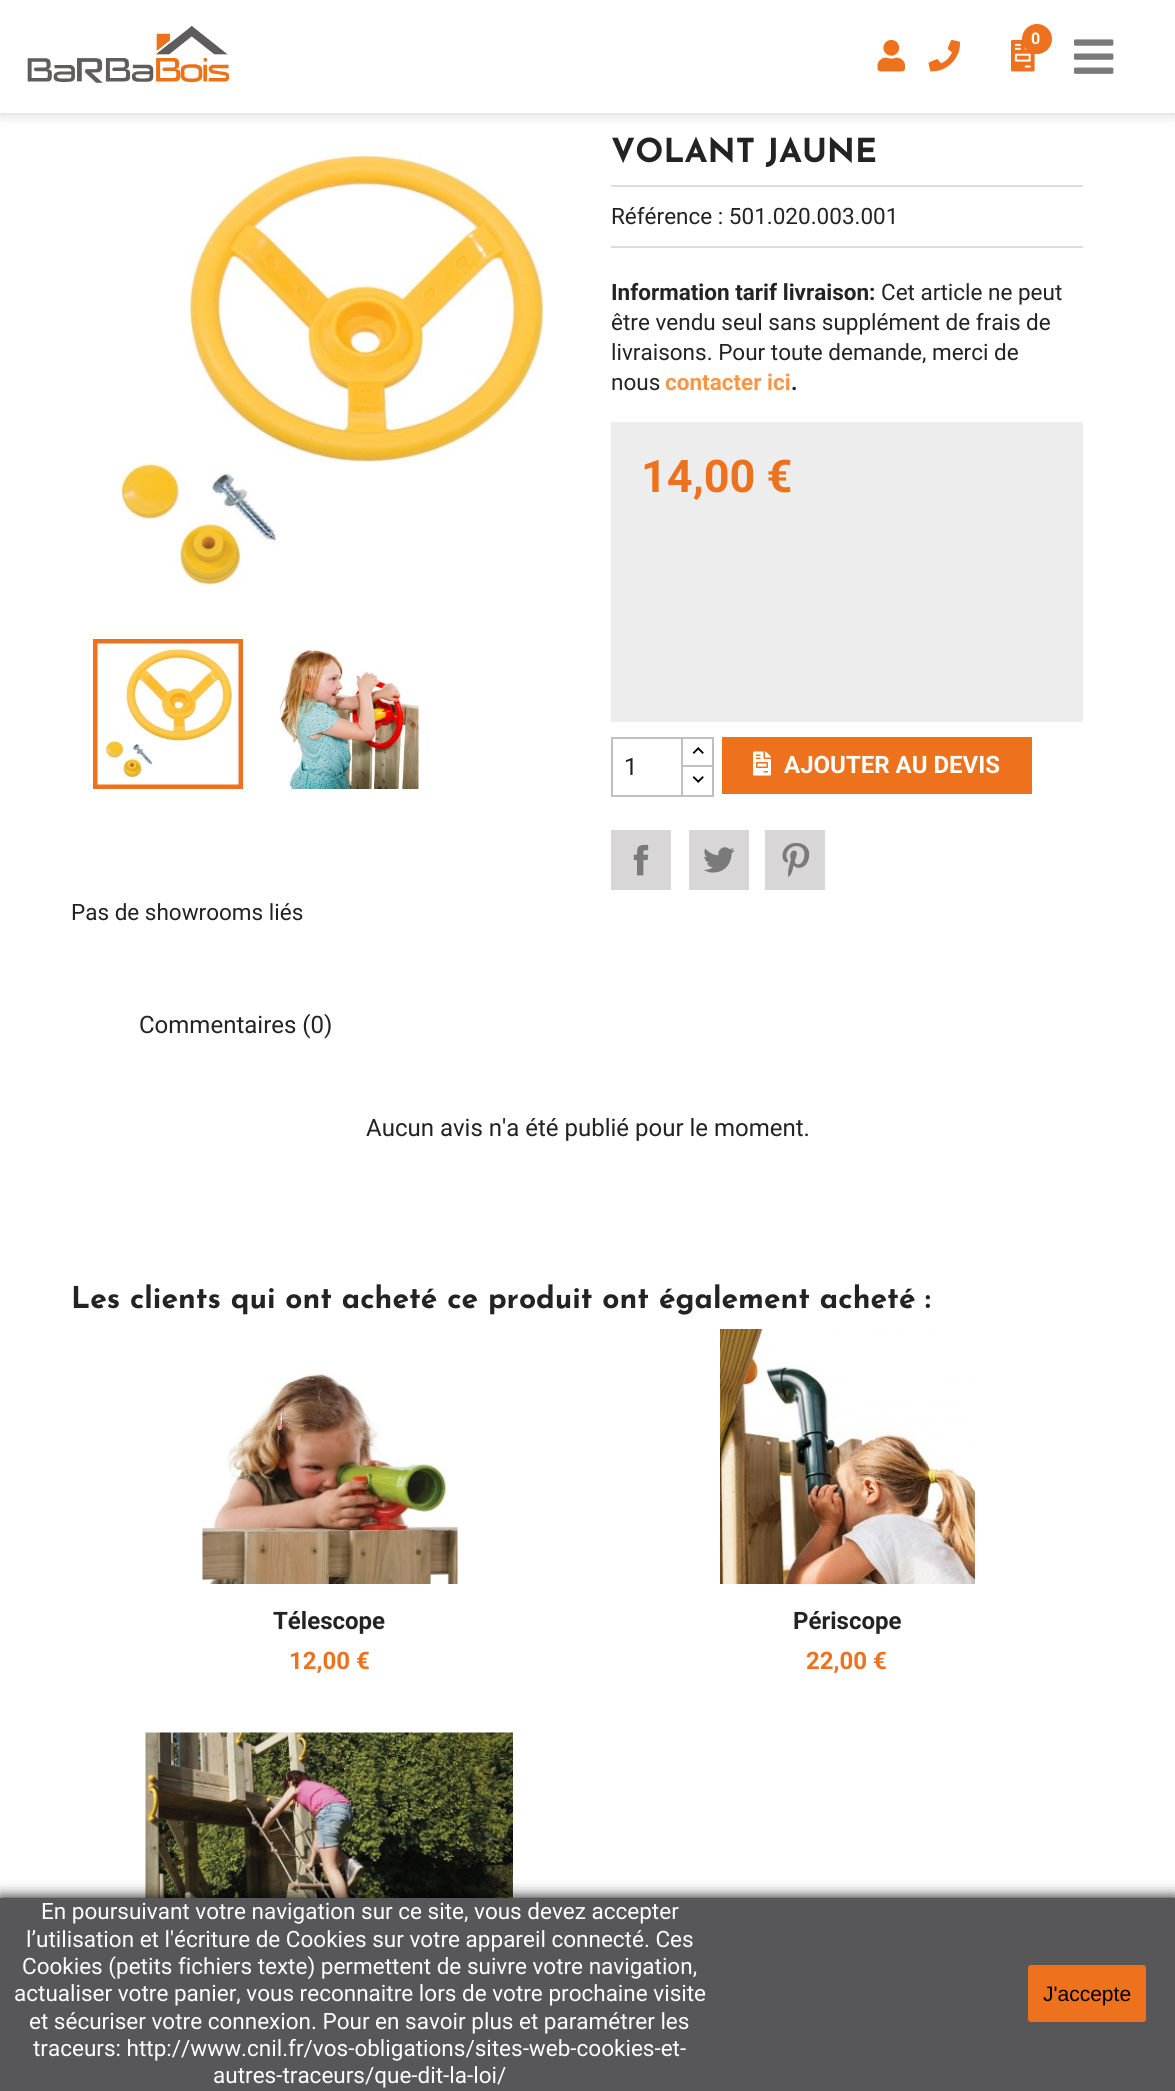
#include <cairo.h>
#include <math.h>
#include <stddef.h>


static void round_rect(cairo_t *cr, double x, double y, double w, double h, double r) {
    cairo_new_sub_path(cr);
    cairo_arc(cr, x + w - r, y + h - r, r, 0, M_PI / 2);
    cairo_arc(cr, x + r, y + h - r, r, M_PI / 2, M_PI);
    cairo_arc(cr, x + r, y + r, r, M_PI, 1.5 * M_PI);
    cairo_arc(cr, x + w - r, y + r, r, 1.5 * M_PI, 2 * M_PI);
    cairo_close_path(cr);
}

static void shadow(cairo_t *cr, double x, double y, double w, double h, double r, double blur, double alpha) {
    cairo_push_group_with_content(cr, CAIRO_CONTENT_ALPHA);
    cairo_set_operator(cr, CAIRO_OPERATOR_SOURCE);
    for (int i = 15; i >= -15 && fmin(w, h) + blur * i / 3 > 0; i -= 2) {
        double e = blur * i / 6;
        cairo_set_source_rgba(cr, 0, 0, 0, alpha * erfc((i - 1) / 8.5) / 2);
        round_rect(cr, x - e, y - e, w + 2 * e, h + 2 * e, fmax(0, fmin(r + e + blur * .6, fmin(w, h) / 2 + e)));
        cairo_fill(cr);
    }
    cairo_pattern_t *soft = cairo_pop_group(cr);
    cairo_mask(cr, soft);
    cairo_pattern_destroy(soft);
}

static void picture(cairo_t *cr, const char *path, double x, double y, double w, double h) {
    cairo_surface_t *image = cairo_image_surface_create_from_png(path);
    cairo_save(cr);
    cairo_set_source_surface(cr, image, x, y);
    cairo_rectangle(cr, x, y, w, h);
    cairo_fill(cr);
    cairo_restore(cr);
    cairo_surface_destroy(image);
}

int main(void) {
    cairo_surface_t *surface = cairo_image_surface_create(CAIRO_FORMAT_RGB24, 1175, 2091);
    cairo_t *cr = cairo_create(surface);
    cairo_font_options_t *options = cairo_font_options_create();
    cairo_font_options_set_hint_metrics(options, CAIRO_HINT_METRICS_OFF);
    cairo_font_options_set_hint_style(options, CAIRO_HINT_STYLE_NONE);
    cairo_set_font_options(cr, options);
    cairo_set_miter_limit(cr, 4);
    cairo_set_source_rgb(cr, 1, 1, 1);
    cairo_paint(cr);
    cairo_set_source_rgb(cr, 0, 0, 0);
    shadow(cr, 0, 0, 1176, 113, 0, 7.5, 0.2);
    cairo_set_source_rgb(cr, 1, 1, 1);
    cairo_rectangle(cr, 0, 0, 1175, 113);
    cairo_fill(cr);
    picture(cr, "img1.png", 27, 26, 203, 57);
    picture(cr, "img2.png", 877, 39, 29, 33);
    picture(cr, "img3.png", 928, 40, 33, 32);
    picture(cr, "img4.png", 1011, 39, 24, 33);
    cairo_set_source_rgb(cr, 0.933, 0.443, 0.118);
    cairo_arc(cr, 1037, 39, 15, 0, 2 * M_PI);
    cairo_fill(cr);
    cairo_select_font_face(cr, "Roboto", CAIRO_FONT_SLANT_NORMAL, CAIRO_FONT_WEIGHT_BOLD);
    cairo_set_font_size(cr, 16);
    cairo_set_source_rgb(cr, 1, 1, 1);
    cairo_move_to(cr, 1031, 44);
    cairo_show_text(cr, "0");
    picture(cr, "img5.png", 1074, 39, 40, 35);
    picture(cr, "img6.png", 120, 150, 424, 437);
    cairo_rectangle(cr, 95.5, 641.5, 145, 145);
    cairo_set_source_rgb(cr, 0.933, 0.443, 0.118);
    cairo_set_line_width(cr, 5);
    cairo_stroke(cr);
    picture(cr, "img7.png", 97, 643, 142, 142);
    picture(cr, "img8.png", 278, 649, 141, 140);
    cairo_select_font_face(cr, "Josefin Sans", CAIRO_FONT_SLANT_NORMAL, CAIRO_FONT_WEIGHT_BOLD);
    cairo_set_font_size(cr, 33);
    cairo_set_source_rgb(cr, 0.137, 0.137, 0.137);
    cairo_move_to(cr, 611, 162);
    cairo_show_text(cr, "VOLANT JAUNE");
    cairo_set_source_rgb(cr, 0.867, 0.867, 0.867);
    cairo_rectangle(cr, 611, 185, 472, 2);
    cairo_fill(cr);
    cairo_rectangle(cr, 611, 246, 472, 2);
    cairo_fill(cr);
    cairo_select_font_face(cr, "Roboto", CAIRO_FONT_SLANT_NORMAL, CAIRO_FONT_WEIGHT_NORMAL);
    cairo_set_font_size(cr, 22.5);
    cairo_set_source_rgb(cr, 0.137, 0.137, 0.137);
    cairo_move_to(cr, 611, 224);
    cairo_show_text(cr, "Référence : 501.020.003.001");
    cairo_select_font_face(cr, "Roboto", CAIRO_FONT_SLANT_NORMAL, CAIRO_FONT_WEIGHT_BOLD);
    cairo_move_to(cr, 611, 300);
    cairo_show_text(cr, "Information tarif livraison:");
    cairo_select_font_face(cr, "Roboto", CAIRO_FONT_SLANT_NORMAL, CAIRO_FONT_WEIGHT_NORMAL);
    cairo_move_to(cr, 881, 300);
    cairo_show_text(cr, "Cet article ne peut");
    cairo_move_to(cr, 611, 330);
    cairo_show_text(cr, "être vendu seul sans supplément de frais de");
    cairo_move_to(cr, 611, 360);
    cairo_show_text(cr, "livraisons. Pour toute demande, merci de");
    cairo_move_to(cr, 611, 390);
    cairo_show_text(cr, "nous");
    cairo_select_font_face(cr, "Roboto", CAIRO_FONT_SLANT_NORMAL, CAIRO_FONT_WEIGHT_BOLD);
    cairo_set_source_rgb(cr, 0.969, 0.588, 0.275);
    cairo_move_to(cr, 665, 390);
    cairo_show_text(cr, "contacter ici");
    cairo_set_source_rgb(cr, 0.137, 0.137, 0.137);
    cairo_move_to(cr, 791, 390);
    cairo_show_text(cr, ".");
    cairo_set_source_rgb(cr, 0.929, 0.929, 0.929);
    cairo_rectangle(cr, 611, 422, 472, 300);
    cairo_fill(cr);
    cairo_set_font_size(cr, 45);
    cairo_set_source_rgb(cr, 0.933, 0.443, 0.118);
    cairo_move_to(cr, 641, 492);
    cairo_show_text(cr, "14,00 €");
    cairo_rectangle(cr, 682, 738, 31, 29);
    cairo_set_source_rgb(cr, 0.749, 0.749, 0.749);
    cairo_set_line_width(cr, 2);
    cairo_stroke(cr);
    cairo_set_source_rgb(cr, 1, 1, 1);
    cairo_rectangle(cr, 683, 767, 29, 1);
    cairo_fill(cr);
    cairo_rectangle(cr, 682, 766, 31, 30);
    cairo_set_source_rgb(cr, 0.749, 0.749, 0.749);
    cairo_stroke(cr);
    cairo_rectangle(cr, 612, 738, 70, 58);
    cairo_stroke(cr);
    cairo_select_font_face(cr, "Roboto", CAIRO_FONT_SLANT_NORMAL, CAIRO_FONT_WEIGHT_NORMAL);
    cairo_set_font_size(cr, 24);
    cairo_set_source_rgb(cr, 0.137, 0.137, 0.137);
    cairo_move_to(cr, 624, 775);
    cairo_show_text(cr, "1");
    picture(cr, "img9.png", 692, 747, 12, 7);
    picture(cr, "img10.png", 692, 776, 12, 7);
    cairo_set_source_rgb(cr, 0.933, 0.443, 0.118);
    cairo_rectangle(cr, 722, 737, 310, 57);
    cairo_fill(cr);
    picture(cr, "img11.png", 753, 751, 18, 25);
    cairo_select_font_face(cr, "Roboto", CAIRO_FONT_SLANT_NORMAL, CAIRO_FONT_WEIGHT_BOLD);
    cairo_set_source_rgb(cr, 1, 1, 1);
    cairo_move_to(cr, 784, 773);
    cairo_show_text(cr, "AJOUTER AU DEVIS");
    cairo_set_source_rgb(cr, 0.847, 0.839, 0.839);
    cairo_rectangle(cr, 611, 830, 60, 60);
    cairo_fill(cr);
    picture(cr, "img12.png", 633, 844, 16, 32);
    cairo_rectangle(cr, 689, 830, 60, 60);
    cairo_fill(cr);
    picture(cr, "img13.png", 704, 847, 31, 26);
    cairo_rectangle(cr, 765, 830, 60, 60);
    cairo_fill(cr);
    picture(cr, "img14.png", 782, 843, 28, 34);
    cairo_select_font_face(cr, "Roboto", CAIRO_FONT_SLANT_NORMAL, CAIRO_FONT_WEIGHT_NORMAL);
    cairo_set_font_size(cr, 22.5);
    cairo_set_source_rgb(cr, 0.137, 0.137, 0.137);
    cairo_move_to(cr, 71, 920);
    cairo_show_text(cr, "Pas de showrooms liés");
    cairo_set_font_size(cr, 24);
    cairo_move_to(cr, 139, 1033);
    cairo_show_text(cr, "Commentaires (0)");
    cairo_move_to(cr, 366, 1136);
    cairo_show_text(cr, "Aucun avis n'a été publié pour le moment.");
    cairo_select_font_face(cr, "Josefin Sans", CAIRO_FONT_SLANT_NORMAL, CAIRO_FONT_WEIGHT_BOLD);
    cairo_set_font_size(cr, 30);
    cairo_move_to(cr, 71, 1308);
    cairo_show_text(cr, "Les clients qui ont acheté ce produit ont également acheté :");
    picture(cr, "img15.png", 202, 1370, 256, 214);
    cairo_select_font_face(cr, "Roboto", CAIRO_FONT_SLANT_NORMAL, CAIRO_FONT_WEIGHT_BOLD);
    cairo_set_font_size(cr, 24);
    cairo_move_to(cr, 273, 1629);
    cairo_show_text(cr, "Télescope");
    cairo_set_source_rgb(cr, 0.933, 0.443, 0.118);
    cairo_move_to(cr, 289, 1669);
    cairo_show_text(cr, "12,00 €");
    picture(cr, "img16.png", 720, 1329, 255, 255);
    cairo_set_source_rgb(cr, 0.137, 0.137, 0.137);
    cairo_move_to(cr, 793, 1629);
    cairo_show_text(cr, "Périscope");
    cairo_set_source_rgb(cr, 0.933, 0.443, 0.118);
    cairo_move_to(cr, 806, 1669);
    cairo_show_text(cr, "22,00 €");
    picture(cr, "img17.png", 145, 1732, 368, 166);
    cairo_set_source_rgb(cr, 0, 0, 0);
    shadow(cr, 0, 1898, 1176, 193, 0, 7.5, 1);
    cairo_set_source_rgb(cr, 0.341, 0.337, 0.349);
    cairo_rectangle(cr, 0, 1898, 1175, 193);
    cairo_fill(cr);
    cairo_select_font_face(cr, "Roboto", CAIRO_FONT_SLANT_NORMAL, CAIRO_FONT_WEIGHT_NORMAL);
    cairo_set_font_size(cr, 22.5);
    cairo_set_source_rgb(cr, 1, 1, 1);
    cairo_move_to(cr, 41, 1919);
    cairo_show_text(cr, "En poursuivant votre navigation sur ce site, vous devez accepter");
    cairo_move_to(cr, 26, 1947);
    cairo_show_text(cr, "l’utilisation et l'écriture de Cookies sur votre appareil connecté. Ces");
    cairo_move_to(cr, 22, 1974);
    cairo_show_text(cr, "Cookies (petits fichiers texte) permettent de suivre votre navigation,");
    cairo_move_to(cr, 14, 2001);
    cairo_show_text(cr, "actualiser votre panier, vous reconnaitre lors de votre prochaine visite");
    cairo_move_to(cr, 29, 2029);
    cairo_show_text(cr, "et sécuriser votre connexion. Pour en savoir plus et paramétrer les");
    cairo_move_to(cr, 33, 2056);
    cairo_show_text(cr, "traceurs: http://www.cnil.fr/vos-obligations/sites-web-cookies-et-");
    cairo_move_to(cr, 213, 2083);
    cairo_show_text(cr, "autres-traceurs/que-dit-la-loi/");
    cairo_set_source_rgb(cr, 0.933, 0.443, 0.118);
    round_rect(cr, 1028, 1965, 118, 57, 3);
    cairo_fill(cr);
    cairo_select_font_face(cr, "Liberation Sans", CAIRO_FONT_SLANT_NORMAL, CAIRO_FONT_WEIGHT_NORMAL);
    cairo_set_font_size(cr, 21);
    cairo_set_source_rgb(cr, 0, 0, 0);
    cairo_move_to(cr, 1043, 2001);
    cairo_show_text(cr, "J'accepte");
    cairo_surface_write_to_png(surface, "page.png");
    cairo_font_options_destroy(options);
    cairo_destroy(cr);
    cairo_surface_destroy(surface);
    return 0;
}
